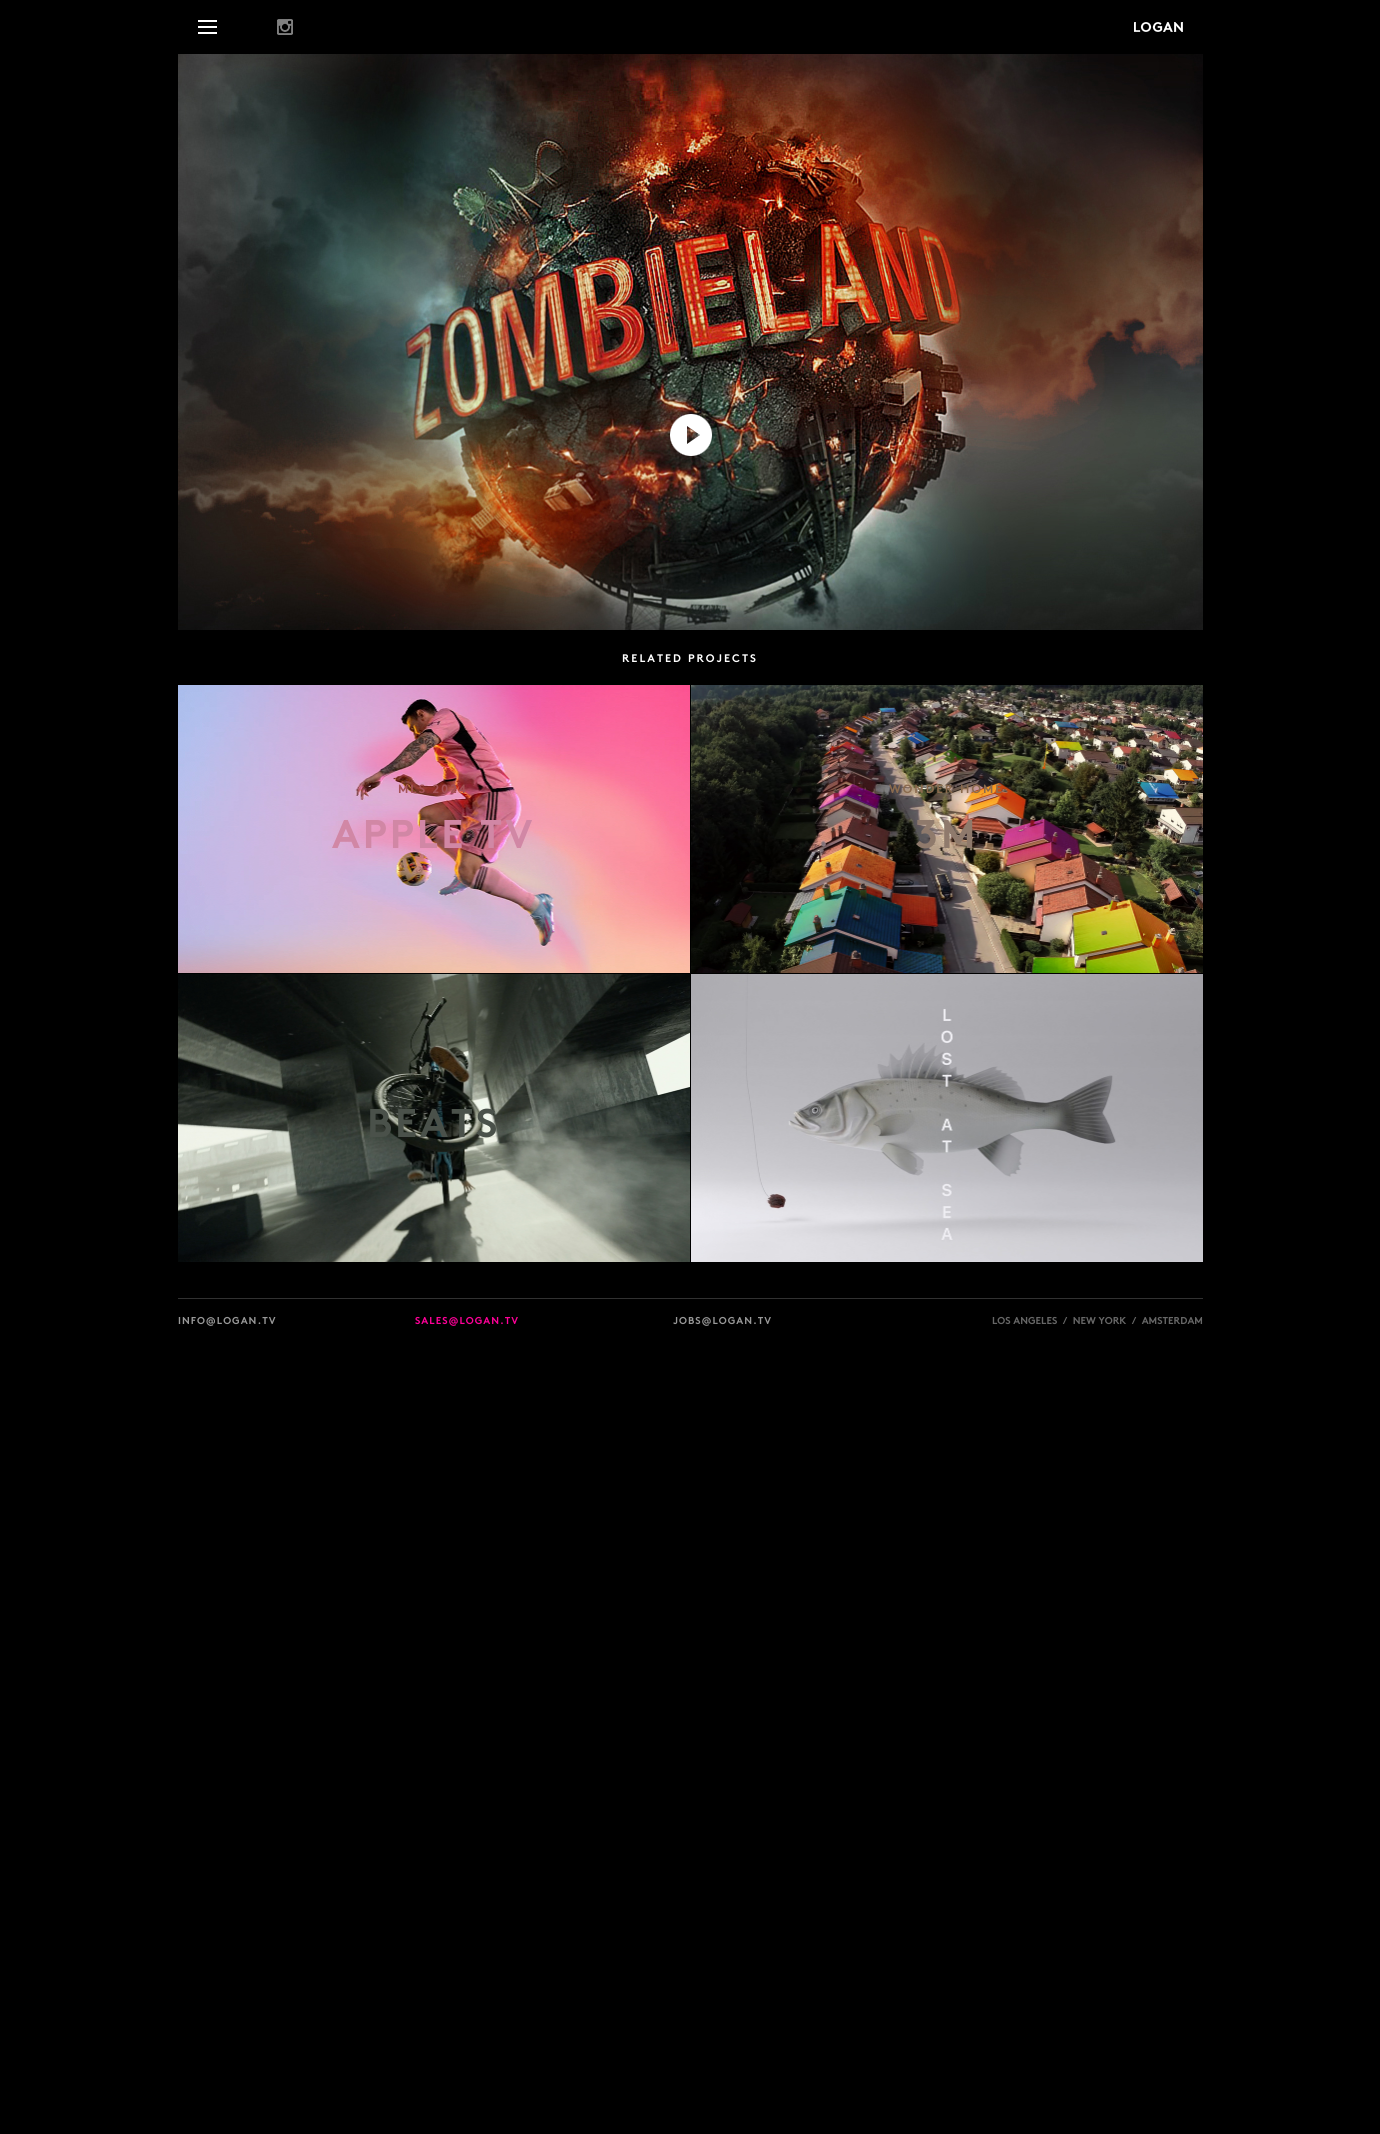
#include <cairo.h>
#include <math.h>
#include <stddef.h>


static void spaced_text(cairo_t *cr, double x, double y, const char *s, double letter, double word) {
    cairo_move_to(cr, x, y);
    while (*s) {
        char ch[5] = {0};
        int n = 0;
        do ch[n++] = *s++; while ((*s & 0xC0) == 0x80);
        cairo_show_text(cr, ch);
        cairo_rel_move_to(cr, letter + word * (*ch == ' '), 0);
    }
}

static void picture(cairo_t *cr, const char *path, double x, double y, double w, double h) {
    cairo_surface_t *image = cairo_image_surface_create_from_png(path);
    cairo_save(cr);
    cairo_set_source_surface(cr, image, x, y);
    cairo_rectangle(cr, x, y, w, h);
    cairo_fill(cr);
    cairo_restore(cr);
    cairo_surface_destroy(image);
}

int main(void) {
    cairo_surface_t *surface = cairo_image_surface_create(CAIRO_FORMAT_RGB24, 1380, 2134);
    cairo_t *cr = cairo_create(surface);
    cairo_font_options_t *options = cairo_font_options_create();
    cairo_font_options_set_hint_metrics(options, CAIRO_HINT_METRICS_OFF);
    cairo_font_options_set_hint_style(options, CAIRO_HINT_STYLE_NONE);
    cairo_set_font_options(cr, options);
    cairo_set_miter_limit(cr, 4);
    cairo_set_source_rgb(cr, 0, 0, 0);
    cairo_paint(cr);
    picture(cr, "img1.png", 198, 20, 19, 14);
    picture(cr, "img2.png", 277, 19, 16, 16);
    picture(cr, "img3.png", 1134, 22, 49, 10);
    picture(cr, "img4.png", 178, 54, 1025, 576);
    picture(cr, "img5.png", 670, 414, 42, 42);
    cairo_select_font_face(cr, "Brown", CAIRO_FONT_SLANT_NORMAL, CAIRO_FONT_WEIGHT_BOLD);
    cairo_set_font_size(cr, 11);
    cairo_set_source_rgb(cr, 1, 1, 1);
    spaced_text(cr, 622, 662, "RELATED PROJECTS", 2, 0);
    picture(cr, "img6.png", 178, 685, 512, 288);
    cairo_set_font_size(cr, 12);
    cairo_set_source_rgb(cr, 0.643, 0.318, 0.337);
    spaced_text(cr, 398, 793, "MLS 2024", 2, 0);
    cairo_set_font_size(cr, 40);
    cairo_set_source_rgb(cr, 0.82, 0.529, 0.647);
    spaced_text(cr, 332, 848, "APPLE TV", 3, 0);
    picture(cr, "img7.png", 691, 685, 512, 288);
    cairo_set_font_size(cr, 12);
    cairo_set_source_rgb(cr, 0.545, 0.42, 0.306);
    spaced_text(cr, 889, 793, "WONDER HOME", 2, 0);
    cairo_set_font_size(cr, 40);
    cairo_set_source_rgb(cr, 0.561, 0.478, 0.424);
    spaced_text(cr, 915, 848, "3M", 3, 0);
    picture(cr, "img8.png", 178, 974, 512, 288);
    cairo_set_font_size(cr, 12);
    cairo_set_source_rgb(cr, 0.129, 0.137, 0.11);
    spaced_text(cr, 432, 1082, "P", 2, 0);
    cairo_set_font_size(cr, 40);
    cairo_set_source_rgb(cr, 0.29, 0.318, 0.29);
    spaced_text(cr, 367, 1137, "BEATS", 3, 0);
    picture(cr, "img9.png", 691, 974, 512, 288);
    cairo_set_source_rgb(cr, 0.192, 0.192, 0.192);
    cairo_rectangle(cr, 178, 1298, 1025, 1);
    cairo_fill(cr);
    cairo_set_font_size(cr, 10);
    cairo_set_source_rgb(cr, 0.6, 0.6, 0.6);
    spaced_text(cr, 178, 1324, "INFO@LOGAN.TV", 1, 0);
    cairo_set_source_rgb(cr, 1, 0, 0.6);
    spaced_text(cr, 415, 1324, "SALES@LOGAN.TV", 1, 0);
    cairo_set_source_rgb(cr, 0.6, 0.6, 0.6);
    spaced_text(cr, 673, 1324, "JOBS@LOGAN.TV", 1, 0);
    cairo_set_source_rgb(cr, 0.404, 0.404, 0.404);
    cairo_move_to(cr, 992, 1324);
    cairo_show_text(cr, "LOS ANGELES  /  NEW YORK  /  AMSTERDAM");
    cairo_surface_write_to_png(surface, "page.png");
    cairo_font_options_destroy(options);
    cairo_destroy(cr);
    cairo_surface_destroy(surface);
    return 0;
}
